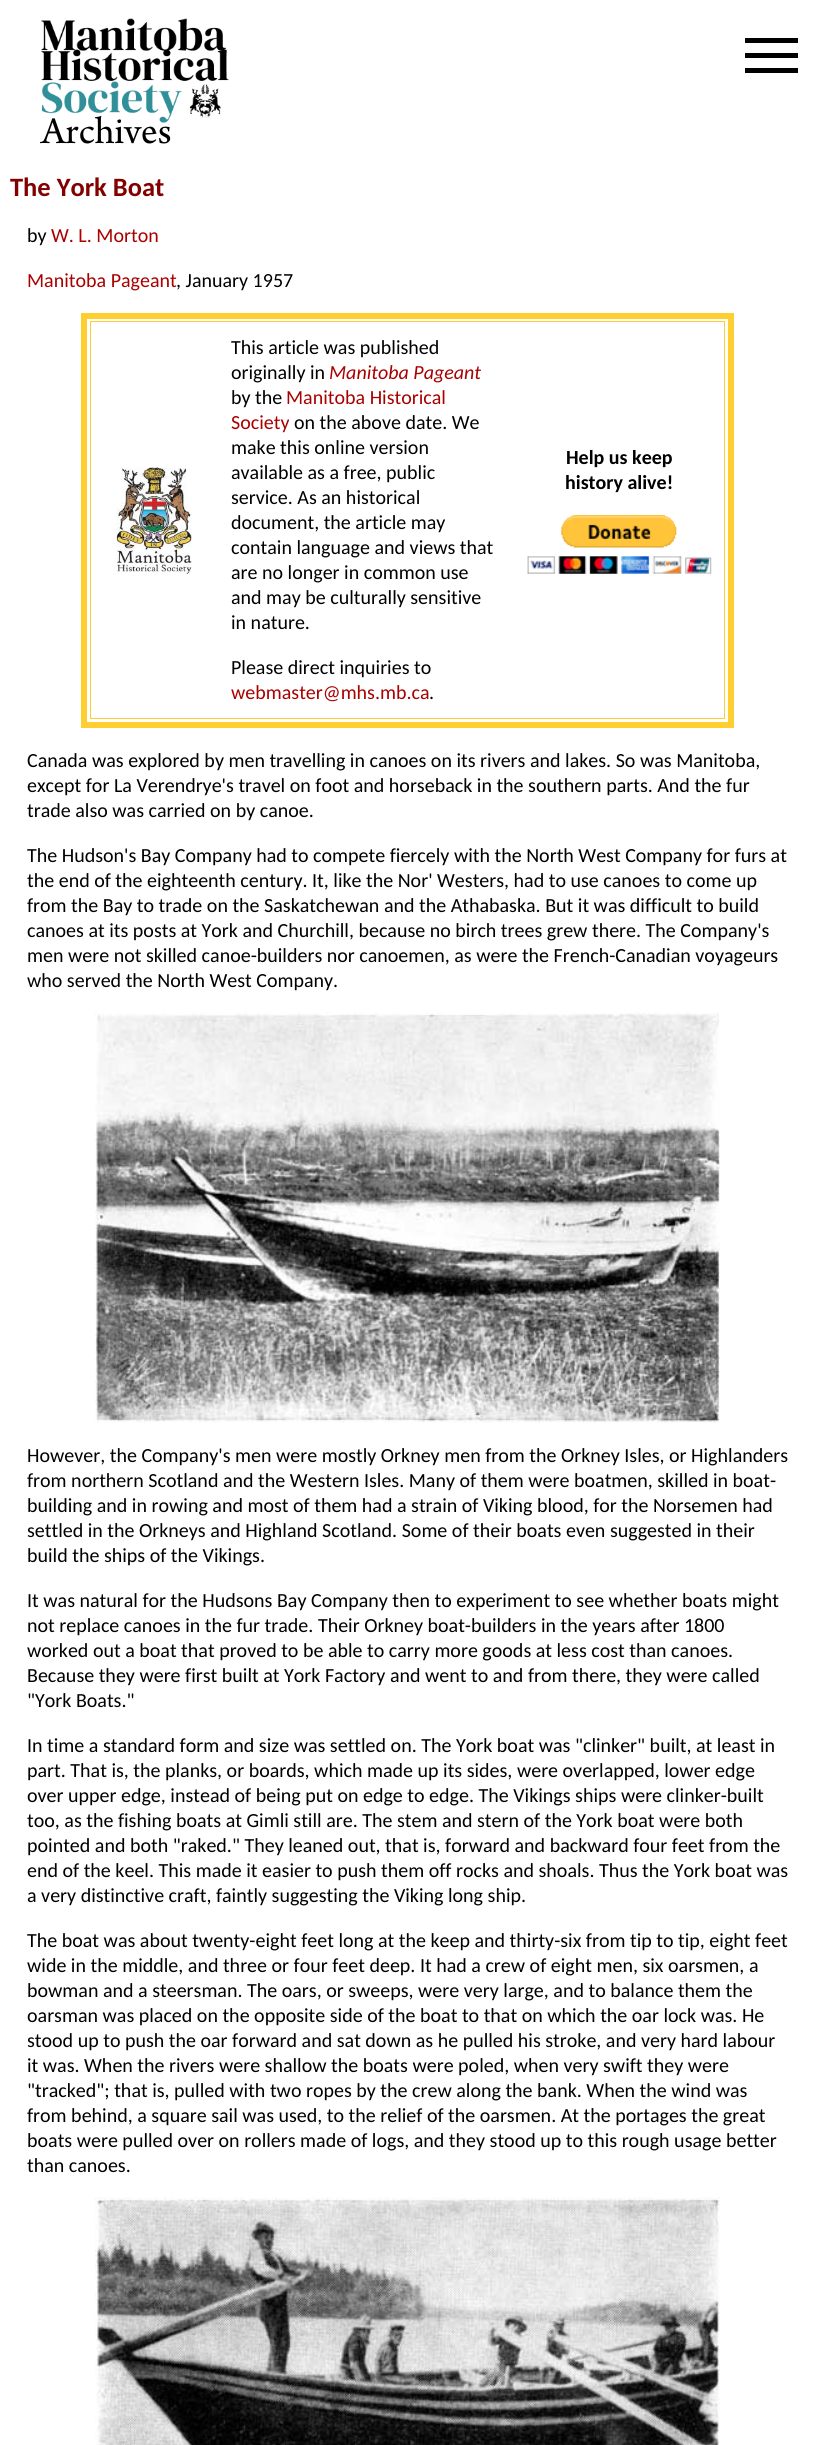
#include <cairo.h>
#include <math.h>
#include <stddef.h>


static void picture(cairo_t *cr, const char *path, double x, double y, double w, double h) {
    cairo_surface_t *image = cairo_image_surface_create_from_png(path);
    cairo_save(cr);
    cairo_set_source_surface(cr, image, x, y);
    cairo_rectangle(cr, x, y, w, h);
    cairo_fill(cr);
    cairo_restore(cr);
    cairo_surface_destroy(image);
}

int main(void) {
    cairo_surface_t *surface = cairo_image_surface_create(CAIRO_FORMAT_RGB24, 814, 2445);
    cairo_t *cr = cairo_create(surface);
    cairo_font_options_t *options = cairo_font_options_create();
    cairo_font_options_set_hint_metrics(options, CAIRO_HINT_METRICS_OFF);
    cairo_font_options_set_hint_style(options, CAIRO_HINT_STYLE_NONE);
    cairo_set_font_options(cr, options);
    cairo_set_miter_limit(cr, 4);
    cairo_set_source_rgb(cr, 1, 1, 1);
    cairo_paint(cr);
    cairo_set_source_rgb(cr, 0, 0, 0);
    cairo_rectangle(cr, 745, 53, 53, 5);
    cairo_fill(cr);
    cairo_rectangle(cr, 745, 38, 53, 5);
    cairo_fill(cr);
    cairo_rectangle(cr, 745, 68, 53, 5);
    cairo_fill(cr);
    picture(cr, "img1.png", 41, 18, 188, 105);
    cairo_select_font_face(cr, "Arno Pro", CAIRO_FONT_SLANT_NORMAL, CAIRO_FONT_WEIGHT_NORMAL);
    cairo_set_font_size(cr, 40);
    cairo_move_to(cr, 41, 143);
    cairo_show_text(cr, "Archives");
    cairo_select_font_face(cr, "Carlito", CAIRO_FONT_SLANT_NORMAL, CAIRO_FONT_WEIGHT_BOLD);
    cairo_set_font_size(cr, 26.5);
    cairo_set_source_rgb(cr, 0.518, 0, 0);
    cairo_move_to(cr, 10, 196);
    cairo_show_text(cr, "The York Boat");
    cairo_select_font_face(cr, "Carlito", CAIRO_FONT_SLANT_NORMAL, CAIRO_FONT_WEIGHT_NORMAL);
    cairo_set_font_size(cr, 20);
    cairo_set_source_rgb(cr, 0, 0, 0);
    cairo_move_to(cr, 27, 242);
    cairo_show_text(cr, "by");
    cairo_set_source_rgb(cr, 0.663, 0, 0);
    cairo_move_to(cr, 51, 242);
    cairo_show_text(cr, "W. L. Morton");
    cairo_move_to(cr, 27, 287);
    cairo_show_text(cr, "Manitoba Pageant");
    cairo_set_source_rgb(cr, 0, 0, 0);
    cairo_move_to(cr, 176, 287);
    cairo_show_text(cr, ", January 1957");
    cairo_rectangle(cr, 84, 316, 647, 409);
    cairo_set_source_rgb(cr, 1, 0.812, 0.192);
    cairo_set_line_width(cr, 6);
    cairo_stroke(cr);
    cairo_rectangle(cr, 90.5, 321.5, 634, 397);
    cairo_set_line_width(cr, 1);
    cairo_stroke(cr);
    picture(cr, "img2.png", 116, 467, 76, 107);
    cairo_set_source_rgb(cr, 0, 0, 0);
    cairo_move_to(cr, 231, 354);
    cairo_show_text(cr, "This article was published");
    cairo_move_to(cr, 231, 379);
    cairo_show_text(cr, "originally in");
    cairo_select_font_face(cr, "Carlito", CAIRO_FONT_SLANT_ITALIC, CAIRO_FONT_WEIGHT_NORMAL);
    cairo_set_source_rgb(cr, 0.663, 0, 0);
    cairo_move_to(cr, 329, 379);
    cairo_show_text(cr, "Manitoba Pageant");
    cairo_select_font_face(cr, "Carlito", CAIRO_FONT_SLANT_NORMAL, CAIRO_FONT_WEIGHT_NORMAL);
    cairo_set_source_rgb(cr, 0, 0, 0);
    cairo_move_to(cr, 231, 404);
    cairo_show_text(cr, "by the");
    cairo_set_source_rgb(cr, 0.663, 0, 0);
    cairo_move_to(cr, 286, 404);
    cairo_show_text(cr, "Manitoba Historical");
    cairo_move_to(cr, 231, 429);
    cairo_show_text(cr, "Society");
    cairo_set_source_rgb(cr, 0, 0, 0);
    cairo_move_to(cr, 294, 429);
    cairo_show_text(cr, "on the above date. We");
    cairo_move_to(cr, 231, 454);
    cairo_show_text(cr, "make this online version");
    cairo_move_to(cr, 231, 479);
    cairo_show_text(cr, "available as a free, public");
    cairo_move_to(cr, 231, 504);
    cairo_show_text(cr, "service. As an historical");
    cairo_move_to(cr, 231, 529);
    cairo_show_text(cr, "document, the article may");
    cairo_move_to(cr, 231, 554);
    cairo_show_text(cr, "contain language and views that");
    cairo_move_to(cr, 231, 579);
    cairo_show_text(cr, "are no longer in common use");
    cairo_move_to(cr, 231, 604);
    cairo_show_text(cr, "and may be culturally sensitive");
    cairo_move_to(cr, 231, 629);
    cairo_show_text(cr, "in nature.");
    cairo_move_to(cr, 231, 674);
    cairo_show_text(cr, "Please direct inquiries to");
    cairo_set_source_rgb(cr, 0.663, 0, 0);
    cairo_move_to(cr, 231, 699);
    cairo_show_text(cr, "webmaster@mhs.mb.ca");
    cairo_set_source_rgb(cr, 0, 0, 0);
    cairo_move_to(cr, 429, 699);
    cairo_show_text(cr, ".");
    cairo_select_font_face(cr, "Carlito", CAIRO_FONT_SLANT_NORMAL, CAIRO_FONT_WEIGHT_BOLD);
    cairo_move_to(cr, 566, 464);
    cairo_show_text(cr, "Help us keep");
    cairo_move_to(cr, 565, 489);
    cairo_show_text(cr, "history alive!");
    picture(cr, "img3.png", 527, 515, 185, 59);
    cairo_select_font_face(cr, "Carlito", CAIRO_FONT_SLANT_NORMAL, CAIRO_FONT_WEIGHT_NORMAL);
    cairo_move_to(cr, 27, 767);
    cairo_show_text(cr, "Canada was explored by men travelling in canoes on its rivers and lakes. So was Manitoba,");
    cairo_move_to(cr, 27, 792);
    cairo_show_text(cr, "except for La Verendrye's travel on foot and horseback in the southern parts. And the fur");
    cairo_move_to(cr, 27, 817);
    cairo_show_text(cr, "trade also was carried on by canoe.");
    cairo_move_to(cr, 27, 862);
    cairo_show_text(cr, "The Hudson's Bay Company had to compete fiercely with the North West Company for furs at");
    cairo_move_to(cr, 27, 887);
    cairo_show_text(cr, "the end of the eighteenth century. It, like the Nor' Westers, had to use canoes to come up");
    cairo_move_to(cr, 27, 912);
    cairo_show_text(cr, "from the Bay to trade on the Saskatchewan and the Athabaska. But it was difficult to build");
    cairo_move_to(cr, 27, 937);
    cairo_show_text(cr, "canoes at its posts at York and Churchill, because no birch trees grew there. The Company's");
    cairo_move_to(cr, 27, 962);
    cairo_show_text(cr, "men were not skilled canoe-builders nor canoemen, as were the French-Canadian voyageurs");
    cairo_move_to(cr, 27, 987);
    cairo_show_text(cr, "who served the North West Company.");
    picture(cr, "img4.png", 95, 1012, 625, 411);
    cairo_move_to(cr, 27, 1462);
    cairo_show_text(cr, "However, the Company's men were mostly Orkney men from the Orkney Isles, or Highlanders");
    cairo_move_to(cr, 27, 1487);
    cairo_show_text(cr, "from northern Scotland and the Western Isles. Many of them were boatmen, skilled in boat-");
    cairo_move_to(cr, 27, 1512);
    cairo_show_text(cr, "building and in rowing and most of them had a strain of Viking blood, for the Norsemen had");
    cairo_move_to(cr, 27, 1537);
    cairo_show_text(cr, "settled in the Orkneys and Highland Scotland. Some of their boats even suggested in their");
    cairo_move_to(cr, 27, 1562);
    cairo_show_text(cr, "build the ships of the Vikings.");
    cairo_move_to(cr, 27, 1607);
    cairo_show_text(cr, "It was natural for the Hudsons Bay Company then to experiment to see whether boats might");
    cairo_move_to(cr, 27, 1632);
    cairo_show_text(cr, "not replace canoes in the fur trade. Their Orkney boat-builders in the years after 1800");
    cairo_move_to(cr, 27, 1657);
    cairo_show_text(cr, "worked out a boat that proved to be able to carry more goods at less cost than canoes.");
    cairo_move_to(cr, 27, 1682);
    cairo_show_text(cr, "Because they were first built at York Factory and went to and from there, they were called");
    cairo_move_to(cr, 27, 1707);
    cairo_show_text(cr, "\"York Boats.\"");
    cairo_move_to(cr, 27, 1752);
    cairo_show_text(cr, "In time a standard form and size was settled on. The York boat was \"clinker\" built, at least in");
    cairo_move_to(cr, 27, 1777);
    cairo_show_text(cr, "part. That is, the planks, or boards, which made up its sides, were overlapped, lower edge");
    cairo_move_to(cr, 27, 1802);
    cairo_show_text(cr, "over upper edge, instead of being put on edge to edge. The Vikings ships were clinker-built");
    cairo_move_to(cr, 27, 1827);
    cairo_show_text(cr, "too, as the fishing boats at Gimli still are. The stem and stern of the York boat were both");
    cairo_move_to(cr, 27, 1852);
    cairo_show_text(cr, "pointed and both \"raked.\" They leaned out, that is, forward and backward four feet from the");
    cairo_move_to(cr, 27, 1877);
    cairo_show_text(cr, "end of the keel. This made it easier to push them off rocks and shoals. Thus the York boat was");
    cairo_move_to(cr, 27, 1902);
    cairo_show_text(cr, "a very distinctive craft, faintly suggesting the Viking long ship.");
    cairo_move_to(cr, 27, 1947);
    cairo_show_text(cr, "The boat was about twenty-eight feet long at the keep and thirty-six from tip to tip, eight feet");
    cairo_move_to(cr, 27, 1972);
    cairo_show_text(cr, "wide in the middle, and three or four feet deep. It had a crew of eight men, six oarsmen, a");
    cairo_move_to(cr, 27, 1997);
    cairo_show_text(cr, "bowman and a steersman. The oars, or sweeps, were very large, and to balance them the");
    cairo_move_to(cr, 27, 2022);
    cairo_show_text(cr, "oarsman was placed on the opposite side of the boat to that on which the oar lock was. He");
    cairo_move_to(cr, 27, 2047);
    cairo_show_text(cr, "stood up to push the oar forward and sat down as he pulled his stroke, and very hard labour");
    cairo_move_to(cr, 27, 2072);
    cairo_show_text(cr, "it was. When the rivers were shallow the boats were poled, when very swift they were");
    cairo_move_to(cr, 27, 2097);
    cairo_show_text(cr, "\"tracked\"; that is, pulled with two ropes by the crew along the bank. When the wind was");
    cairo_move_to(cr, 27, 2122);
    cairo_show_text(cr, "from behind, a square sail was used, to the relief of the oarsmen. At the portages the great");
    cairo_move_to(cr, 27, 2147);
    cairo_show_text(cr, "boats were pulled over on rollers made of logs, and they stood up to this rough usage better");
    cairo_move_to(cr, 27, 2172);
    cairo_show_text(cr, "than canoes.");
    picture(cr, "img5.png", 95, 2197, 625, 248);
    cairo_surface_write_to_png(surface, "page.png");
    cairo_font_options_destroy(options);
    cairo_destroy(cr);
    cairo_surface_destroy(surface);
    return 0;
}
